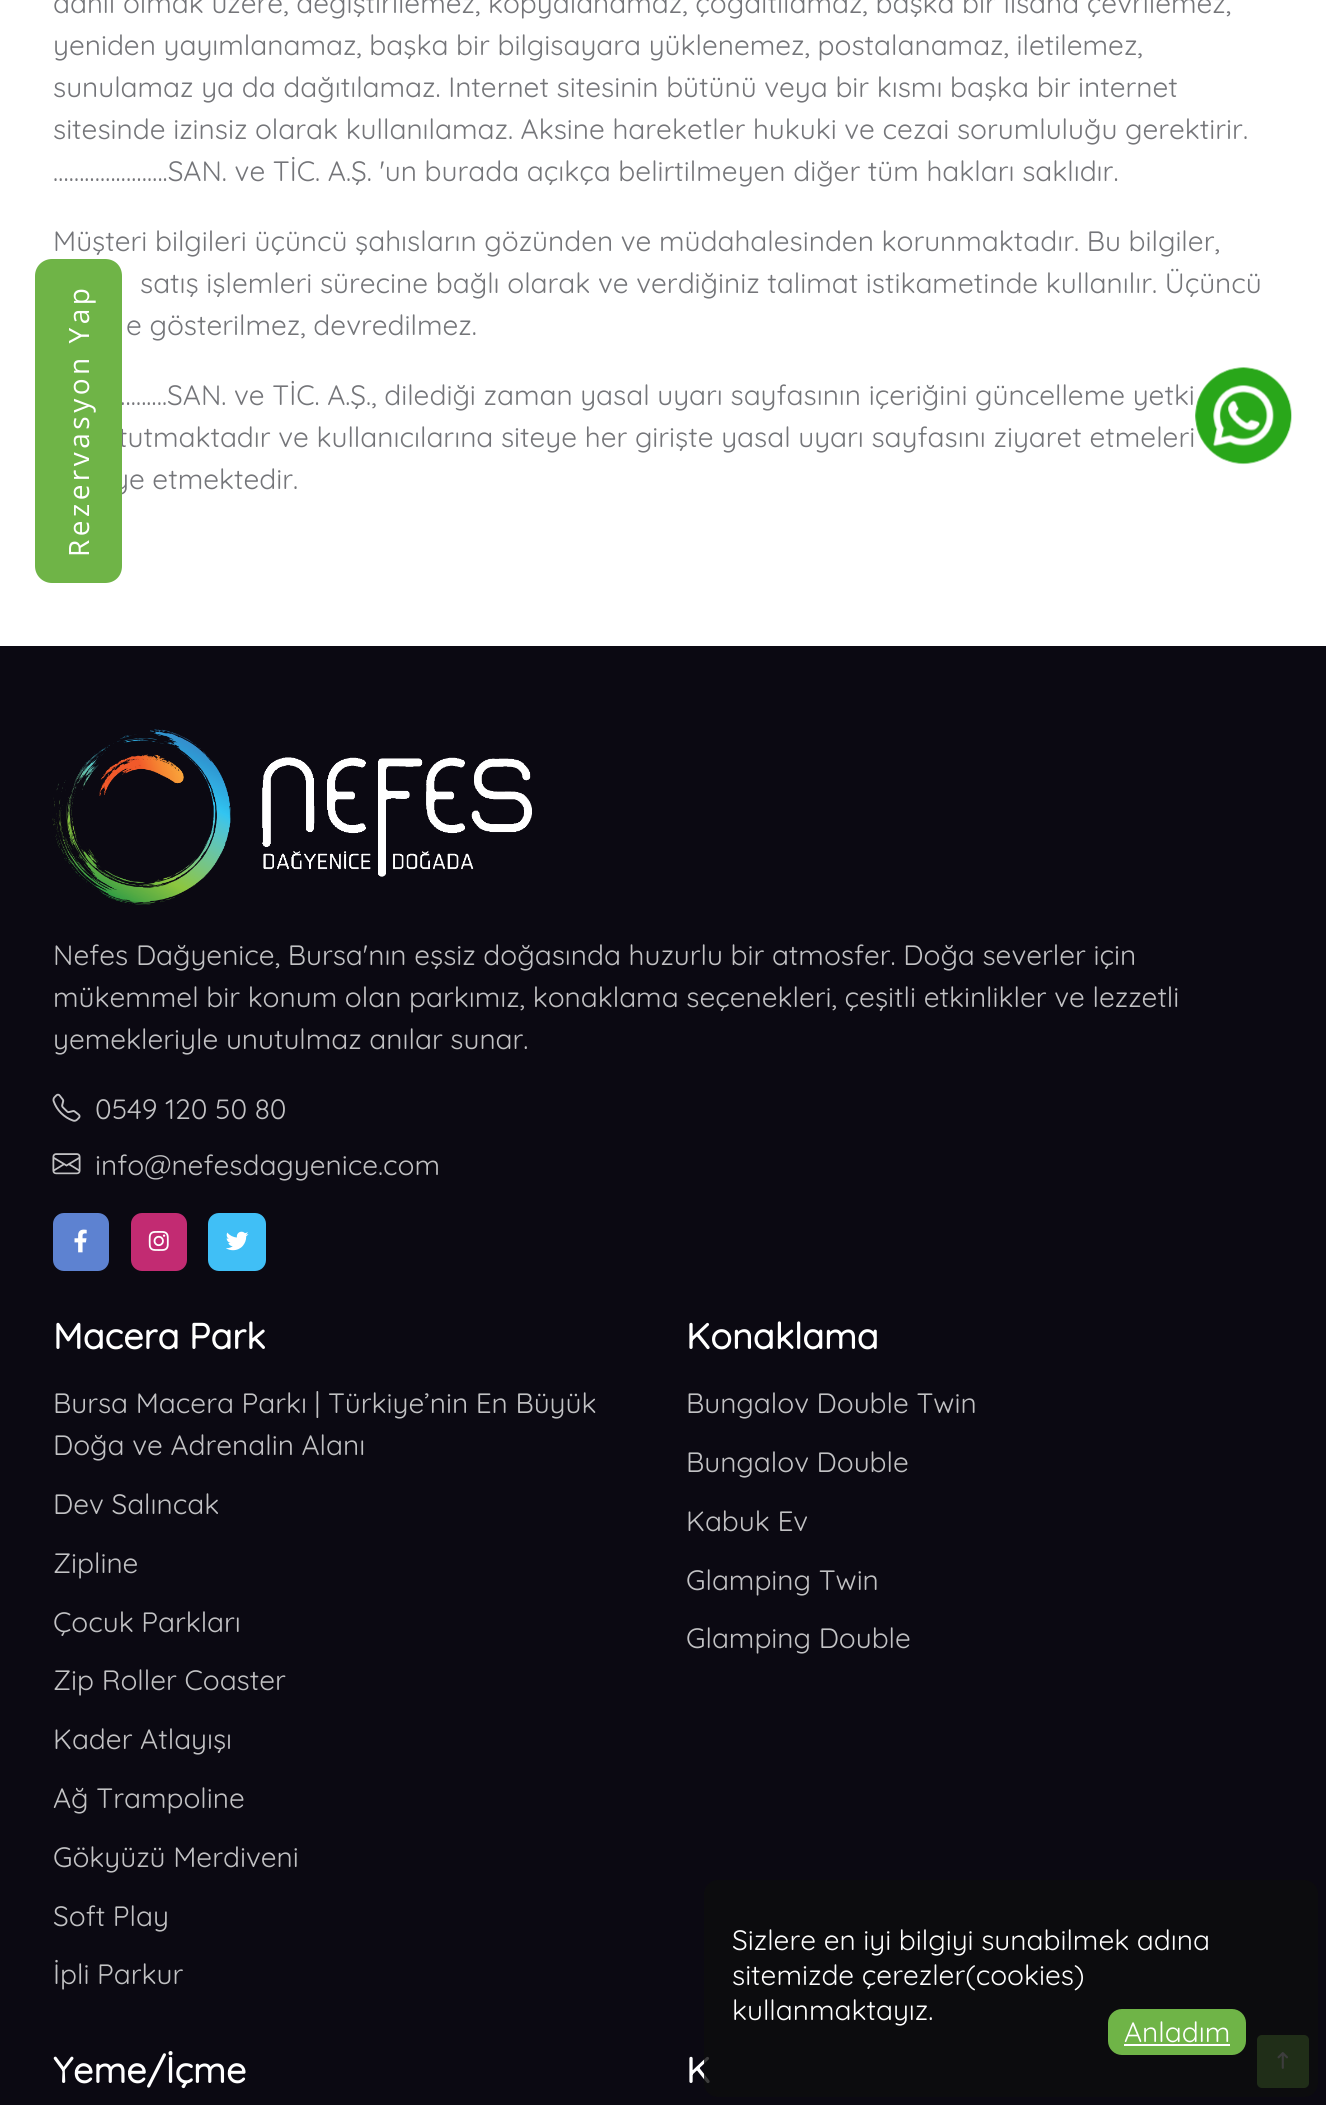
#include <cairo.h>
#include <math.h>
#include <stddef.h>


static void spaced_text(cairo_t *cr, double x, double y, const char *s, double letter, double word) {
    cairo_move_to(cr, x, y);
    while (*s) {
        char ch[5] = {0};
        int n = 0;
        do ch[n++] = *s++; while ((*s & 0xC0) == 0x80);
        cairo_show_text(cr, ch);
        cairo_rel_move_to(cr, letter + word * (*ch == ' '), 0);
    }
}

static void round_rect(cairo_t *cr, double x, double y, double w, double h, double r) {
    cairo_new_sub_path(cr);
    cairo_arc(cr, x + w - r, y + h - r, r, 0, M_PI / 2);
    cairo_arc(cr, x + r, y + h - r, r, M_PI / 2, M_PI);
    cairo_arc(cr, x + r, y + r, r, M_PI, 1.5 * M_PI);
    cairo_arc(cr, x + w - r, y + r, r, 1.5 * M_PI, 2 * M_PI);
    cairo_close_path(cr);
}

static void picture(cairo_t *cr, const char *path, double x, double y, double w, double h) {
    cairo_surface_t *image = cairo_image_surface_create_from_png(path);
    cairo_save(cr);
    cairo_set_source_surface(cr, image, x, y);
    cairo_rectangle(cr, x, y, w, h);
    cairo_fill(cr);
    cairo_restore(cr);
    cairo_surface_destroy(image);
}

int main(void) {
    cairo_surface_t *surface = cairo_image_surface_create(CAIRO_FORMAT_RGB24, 1326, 2105);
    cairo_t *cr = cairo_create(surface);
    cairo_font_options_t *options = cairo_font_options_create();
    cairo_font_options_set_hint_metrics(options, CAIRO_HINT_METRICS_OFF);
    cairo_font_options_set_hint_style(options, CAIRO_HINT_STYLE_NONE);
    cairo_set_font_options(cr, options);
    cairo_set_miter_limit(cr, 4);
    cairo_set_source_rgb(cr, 1, 1, 1);
    cairo_paint(cr);
    cairo_select_font_face(cr, "Quicksand Light", CAIRO_FONT_SLANT_NORMAL, CAIRO_FONT_WEIGHT_NORMAL);
    cairo_set_font_size(cr, 28);
    cairo_set_source_rgb(cr, 0.455, 0.459, 0.475);
    cairo_move_to(cr, 53, 13);
    cairo_show_text(cr, "dahil olmak üzere, değiştirilemez, kopyalanamaz, çoğaltılamaz, başka bir lisana çevrilemez,");
    cairo_move_to(cr, 53, 55);
    cairo_show_text(cr, "yeniden yayımlanamaz, başka bir bilgisayara yüklenemez, postalanamaz, iletilemez,");
    cairo_move_to(cr, 53, 97);
    cairo_show_text(cr, "sunulamaz ya da dağıtılamaz. Internet sitesinin bütünü veya bir kısmı başka bir internet");
    cairo_move_to(cr, 53, 139);
    cairo_show_text(cr, "sitesinde izinsiz olarak kullanılamaz. Aksine hareketler hukuki ve cezai sorumluluğu gerektirir.");
    cairo_move_to(cr, 53, 181);
    cairo_show_text(cr, "………………….SAN. ve TİC. A.Ş. 'un burada açıkça belirtilmeyen diğer tüm hakları saklıdır.");
    cairo_move_to(cr, 53, 251);
    cairo_show_text(cr, "Müşteri bilgileri üçüncü şahısların gözünden ve müdahalesinden korunmaktadır. Bu bilgiler,");
    cairo_move_to(cr, 140, 293);
    cairo_show_text(cr, "satış işlemleri sürecine bağlı olarak ve verdiğiniz talimat istikametinde kullanılır. Üçüncü");
    cairo_move_to(cr, 126, 335);
    cairo_show_text(cr, "e gösterilmez, devredilmez.");
    cairo_move_to(cr, 115, 405);
    cairo_show_text(cr, "……….SAN. ve TİC. A.Ş., dilediği zaman yasal uyarı sayfasının içeriğini güncelleme yetki");
    cairo_move_to(cr, 118, 447);
    cairo_show_text(cr, "tutmaktadır ve kullanıcılarına siteye her girişte yasal uyarı sayfasını ziyaret etmeleri");
    cairo_move_to(cr, 113, 489);
    cairo_show_text(cr, "ye etmektedir.");
    cairo_set_source_rgb(cr, 0.435, 0.706, 0.278);
    cairo_new_path(cr);
    cairo_move_to(cr, 35, 566);
    cairo_line_to(cr, 35, 276);
    cairo_curve_to(cr, 35, 266, 43, 259, 52, 259);
    cairo_line_to(cr, 105, 259);
    cairo_curve_to(cr, 115, 259, 122, 266, 122, 276);
    cairo_line_to(cr, 122, 566);
    cairo_curve_to(cr, 122, 576, 115, 583, 105, 583);
    cairo_line_to(cr, 52, 583);
    cairo_curve_to(cr, 43, 583, 35, 576, 35, 566);
    cairo_close_path(cr);
    cairo_fill(cr);
    cairo_select_font_face(cr, "Open Sans", CAIRO_FONT_SLANT_NORMAL, CAIRO_FONT_WEIGHT_NORMAL);
    cairo_set_source_rgb(cr, 1, 1, 1);
    cairo_save(cr);
    cairo_translate(cr, 89, 557);
    cairo_rotate(cr, -90 * M_PI / 180);
    spaced_text(cr, 0, 0, "Rezervasyon Yap", 3.5, 0);
    cairo_restore(cr);
    picture(cr, "img1.png", 1195, 367, 97, 98);
    cairo_set_source_rgb(cr, 0.043, 0.039, 0.071);
    cairo_rectangle(cr, 0, 646, 1326, 1459);
    cairo_fill(cr);
    picture(cr, "img2.png", 52, 729, 480, 176);
    cairo_select_font_face(cr, "Quicksand Light", CAIRO_FONT_SLANT_NORMAL, CAIRO_FONT_WEIGHT_NORMAL);
    cairo_set_source_rgb(cr, 0.761, 0.761, 0.769);
    cairo_move_to(cr, 53, 965);
    cairo_show_text(cr, "Nefes Dağyenice, Bursa'nın eşsiz doğasında huzurlu bir atmosfer. Doğa severler için");
    cairo_move_to(cr, 53, 1007);
    cairo_show_text(cr, "mükemmel bir konum olan parkımız, konaklama seçenekleri, çeşitli etkinlikler ve lezzetli");
    cairo_move_to(cr, 53, 1049);
    cairo_show_text(cr, "yemekleriyle unutulmaz anılar sunar.");
    picture(cr, "img3.png", 52, 1093, 29, 29);
    cairo_move_to(cr, 95, 1119);
    cairo_show_text(cr, "0549 120 50 80");
    picture(cr, "img4.png", 52, 1153, 29, 22);
    cairo_move_to(cr, 95, 1175);
    cairo_show_text(cr, "info@nefesdagyenice.com");
    cairo_set_source_rgb(cr, 0.365, 0.51, 0.82);
    round_rect(cr, 53, 1213, 56, 58, 11);
    cairo_fill(cr);
    picture(cr, "img5.png", 74, 1229, 13, 24);
    cairo_set_source_rgb(cr, 0.761, 0.169, 0.447);
    round_rect(cr, 131, 1213, 56, 58, 11);
    cairo_fill(cr);
    picture(cr, "img6.png", 148, 1231, 21, 20);
    cairo_set_source_rgb(cr, 0.251, 0.749, 0.961);
    round_rect(cr, 208, 1213, 58, 58, 11);
    cairo_fill(cr);
    picture(cr, "img7.png", 226, 1231, 23, 20);
    cairo_select_font_face(cr, "Quicksand", CAIRO_FONT_SLANT_NORMAL, CAIRO_FONT_WEIGHT_BOLD);
    cairo_set_font_size(cr, 36);
    cairo_set_source_rgb(cr, 1, 1, 1);
    cairo_move_to(cr, 53, 1349);
    cairo_show_text(cr, "Macera Park");
    cairo_select_font_face(cr, "Quicksand Light", CAIRO_FONT_SLANT_NORMAL, CAIRO_FONT_WEIGHT_NORMAL);
    cairo_set_font_size(cr, 28);
    cairo_set_source_rgb(cr, 0.761, 0.761, 0.769);
    cairo_move_to(cr, 53, 1413);
    cairo_show_text(cr, "Bursa Macera Parkı | Türkiye’nin En Büyük");
    cairo_move_to(cr, 53, 1455);
    cairo_show_text(cr, "Doğa ve Adrenalin Alanı");
    cairo_move_to(cr, 53, 1514);
    cairo_show_text(cr, "Dev Salıncak");
    cairo_move_to(cr, 53, 1573);
    cairo_show_text(cr, "Zipline");
    cairo_move_to(cr, 53, 1632);
    cairo_show_text(cr, "Çocuk Parkları");
    cairo_move_to(cr, 53, 1690);
    cairo_show_text(cr, "Zip Roller Coaster");
    cairo_move_to(cr, 53, 1749);
    cairo_show_text(cr, "Kader Atlayışı");
    cairo_move_to(cr, 53, 1808);
    cairo_show_text(cr, "Ağ Trampoline");
    cairo_move_to(cr, 53, 1867);
    cairo_show_text(cr, "Gökyüzü Merdiveni");
    cairo_move_to(cr, 53, 1926);
    cairo_show_text(cr, "Soft Play");
    cairo_move_to(cr, 53, 1984);
    cairo_show_text(cr, "İpli Parkur");
    cairo_select_font_face(cr, "Quicksand", CAIRO_FONT_SLANT_NORMAL, CAIRO_FONT_WEIGHT_BOLD);
    cairo_set_font_size(cr, 36);
    cairo_set_source_rgb(cr, 1, 1, 1);
    cairo_move_to(cr, 686, 1349);
    cairo_show_text(cr, "Konaklama");
    cairo_select_font_face(cr, "Quicksand Light", CAIRO_FONT_SLANT_NORMAL, CAIRO_FONT_WEIGHT_NORMAL);
    cairo_set_font_size(cr, 28);
    cairo_set_source_rgb(cr, 0.761, 0.761, 0.769);
    cairo_move_to(cr, 686, 1413);
    cairo_show_text(cr, "Bungalov Double Twin");
    cairo_move_to(cr, 686, 1472);
    cairo_show_text(cr, "Bungalov Double");
    cairo_move_to(cr, 686, 1531);
    cairo_show_text(cr, "Kabuk Ev");
    cairo_move_to(cr, 686, 1590);
    cairo_show_text(cr, "Glamping Twin");
    cairo_move_to(cr, 686, 1648);
    cairo_show_text(cr, "Glamping Double");
    cairo_select_font_face(cr, "Quicksand", CAIRO_FONT_SLANT_NORMAL, CAIRO_FONT_WEIGHT_BOLD);
    cairo_set_font_size(cr, 36);
    cairo_set_source_rgb(cr, 1, 1, 1);
    cairo_move_to(cr, 53, 2083);
    cairo_show_text(cr, "Yeme/İçme");
    cairo_move_to(cr, 686, 2083);
    cairo_show_text(cr, "K");
    cairo_set_source_rgb(cr, 0.435, 0.706, 0.278);
    round_rect(cr, 1257, 2035, 52, 53, 5);
    cairo_fill(cr);
    picture(cr, "img8.png", 1277, 2052, 11, 17);
    cairo_set_source_rgba(cr, 0.051, 0.051, 0.051, 0.8);
    round_rect(cr, 704, 1880, 614, 217, 14);
    cairo_fill(cr);
    cairo_select_font_face(cr, "Quicksand Light", CAIRO_FONT_SLANT_NORMAL, CAIRO_FONT_WEIGHT_NORMAL);
    cairo_set_font_size(cr, 28);
    cairo_set_source_rgb(cr, 1, 1, 1);
    cairo_move_to(cr, 732, 1950);
    cairo_show_text(cr, "Sizlere en iyi bilgiyi sunabilmek adına");
    cairo_move_to(cr, 732, 1985);
    cairo_show_text(cr, "sitemizde çerezler(cookies)");
    cairo_move_to(cr, 732, 2020);
    cairo_show_text(cr, "kullanmaktayız.");
    cairo_set_source_rgb(cr, 0.435, 0.706, 0.278);
    round_rect(cr, 1108, 2009, 138, 46, 14);
    cairo_fill(cr);
    cairo_set_source_rgb(cr, 1, 1, 1);
    cairo_move_to(cr, 1124, 2042);
    cairo_show_text(cr, "Anladım");
    cairo_rectangle(cr, 1124, 2044, 106, 2);
    cairo_fill(cr);
    cairo_surface_write_to_png(surface, "page.png");
    cairo_font_options_destroy(options);
    cairo_destroy(cr);
    cairo_surface_destroy(surface);
    return 0;
}
